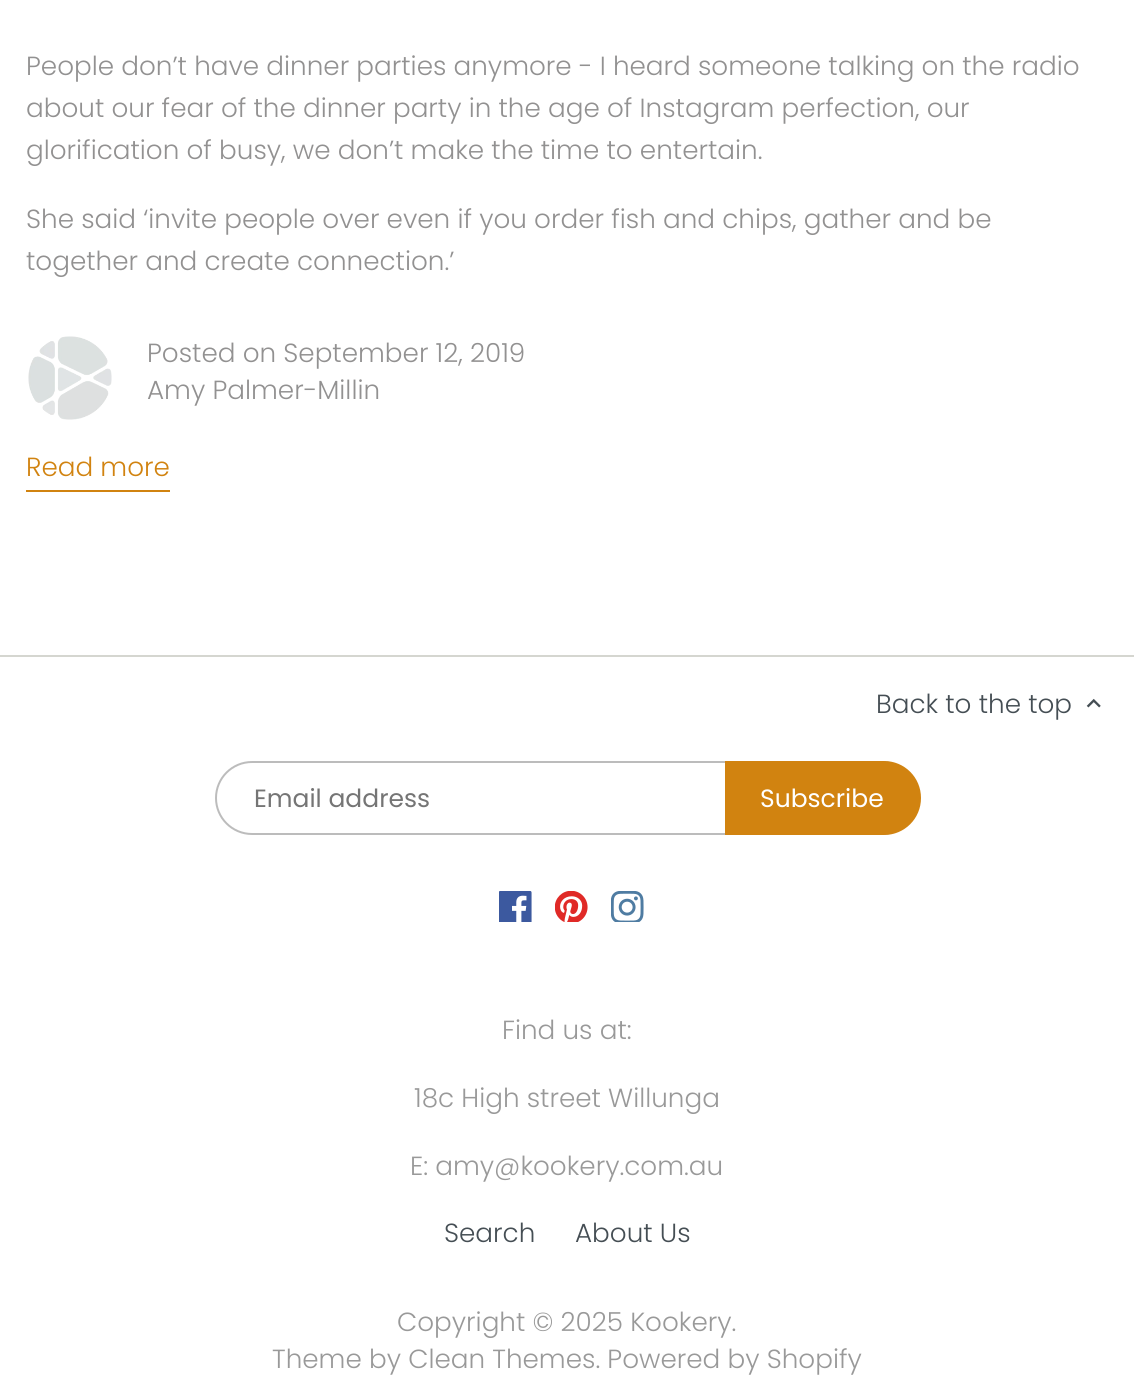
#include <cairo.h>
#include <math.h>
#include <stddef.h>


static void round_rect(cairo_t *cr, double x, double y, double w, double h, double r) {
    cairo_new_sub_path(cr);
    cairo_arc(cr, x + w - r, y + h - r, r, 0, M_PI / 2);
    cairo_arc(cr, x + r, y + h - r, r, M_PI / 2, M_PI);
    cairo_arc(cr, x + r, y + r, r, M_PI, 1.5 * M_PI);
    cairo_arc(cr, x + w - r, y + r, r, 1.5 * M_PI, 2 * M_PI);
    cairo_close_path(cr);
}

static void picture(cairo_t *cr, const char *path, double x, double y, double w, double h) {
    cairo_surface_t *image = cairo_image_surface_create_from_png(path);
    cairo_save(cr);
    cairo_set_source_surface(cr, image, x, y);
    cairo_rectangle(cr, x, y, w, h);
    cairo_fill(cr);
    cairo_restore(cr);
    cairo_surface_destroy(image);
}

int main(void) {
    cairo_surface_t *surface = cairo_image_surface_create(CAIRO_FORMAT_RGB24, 1134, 1400);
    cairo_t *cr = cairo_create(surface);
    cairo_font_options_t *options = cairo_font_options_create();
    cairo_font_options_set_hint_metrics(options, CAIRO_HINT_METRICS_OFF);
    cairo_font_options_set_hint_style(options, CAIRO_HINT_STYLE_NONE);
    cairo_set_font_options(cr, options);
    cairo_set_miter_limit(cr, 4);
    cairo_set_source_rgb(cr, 1, 1, 1);
    cairo_paint(cr);
    cairo_select_font_face(cr, "Poppins Light", CAIRO_FONT_SLANT_NORMAL, CAIRO_FONT_WEIGHT_NORMAL);
    cairo_set_font_size(cr, 26.25);
    cairo_set_source_rgb(cr, 0.573, 0.569, 0.569);
    cairo_move_to(cr, 26, 75);
    cairo_show_text(cr, "People don’t have dinner parties anymore - I heard someone talking on the radio");
    cairo_move_to(cr, 26, 117);
    cairo_show_text(cr, "about our fear of the dinner party in the age of Instagram perfection, our");
    cairo_move_to(cr, 26, 159);
    cairo_show_text(cr, "glorification of busy, we don’t make the time to entertain.");
    cairo_move_to(cr, 26, 228);
    cairo_show_text(cr, "She said ‘invite people over even if you order fish and chips, gather and be");
    cairo_move_to(cr, 26, 270);
    cairo_show_text(cr, "together and create connection.’");
    picture(cr, "img1.png", 28, 336, 84, 84);
    cairo_move_to(cr, 147, 362);
    cairo_show_text(cr, "Posted on September 12, 2019");
    cairo_move_to(cr, 147, 399);
    cairo_show_text(cr, "Amy Palmer-Millin");
    cairo_set_source_rgb(cr, 0.82, 0.514, 0.063);
    cairo_move_to(cr, 26, 476);
    cairo_show_text(cr, "Read more");
    cairo_rectangle(cr, 26, 490, 144, 2);
    cairo_fill(cr);
    cairo_set_source_rgb(cr, 0.835, 0.839, 0.816);
    cairo_rectangle(cr, 0, 655, 1134, 2);
    cairo_fill(cr);
    cairo_set_source_rgb(cr, 0.271, 0.306, 0.329);
    cairo_move_to(cr, 876, 713);
    cairo_show_text(cr, "Back to the top");
    picture(cr, "img2.png", 1086, 698, 15, 10);
    round_rect(cr, 216, 762, 702, 72, 36);
    cairo_set_source_rgb(cr, 0.737, 0.737, 0.737);
    cairo_stroke(cr);
    cairo_select_font_face(cr, "Poppins", CAIRO_FONT_SLANT_NORMAL, CAIRO_FONT_WEIGHT_NORMAL);
    cairo_set_font_size(cr, 25);
    cairo_set_source_rgb(cr, 0.459, 0.459, 0.459);
    cairo_move_to(cr, 254, 807);
    cairo_show_text(cr, "Email address");
    cairo_set_source_rgb(cr, 0.82, 0.514, 0.063);
    cairo_new_path(cr);
    cairo_move_to(cr, 726, 762);
    cairo_line_to(cr, 884, 762);
    cairo_curve_to(cr, 904, 762, 920, 778, 920, 798);
    cairo_curve_to(cr, 920, 818, 904, 834, 884, 834);
    cairo_line_to(cr, 726, 834);
    cairo_close_path(cr);
    cairo_fill_preserve(cr);
    cairo_stroke(cr);
    cairo_set_source_rgb(cr, 1, 1, 1);
    cairo_move_to(cr, 760, 807);
    cairo_show_text(cr, "Subscribe");
    picture(cr, "img3.png", 499, 891, 33, 31);
    picture(cr, "img4.png", 555, 891, 33, 31);
    picture(cr, "img5.png", 611, 891, 33, 31);
    cairo_select_font_face(cr, "Poppins Light", CAIRO_FONT_SLANT_NORMAL, CAIRO_FONT_WEIGHT_NORMAL);
    cairo_set_font_size(cr, 26.25);
    cairo_set_source_rgb(cr, 0.6, 0.6, 0.6);
    cairo_move_to(cr, 502, 1039);
    cairo_show_text(cr, "Find us at:");
    cairo_move_to(cr, 414, 1107);
    cairo_show_text(cr, "18c High street Willunga");
    cairo_move_to(cr, 410, 1175);
    cairo_show_text(cr, "E: amy@kookery.com.au");
    cairo_set_source_rgb(cr, 0.271, 0.306, 0.329);
    cairo_move_to(cr, 444, 1242);
    cairo_show_text(cr, "Search");
    cairo_move_to(cr, 575, 1242);
    cairo_show_text(cr, "About Us");
    cairo_set_source_rgb(cr, 0.6, 0.6, 0.6);
    cairo_move_to(cr, 397, 1331);
    cairo_show_text(cr, "Copyright © 2025 Kookery.");
    cairo_move_to(cr, 272, 1368);
    cairo_show_text(cr, "Theme by Clean Themes. Powered by Shopify");
    cairo_surface_write_to_png(surface, "page.png");
    cairo_font_options_destroy(options);
    cairo_destroy(cr);
    cairo_surface_destroy(surface);
    return 0;
}
